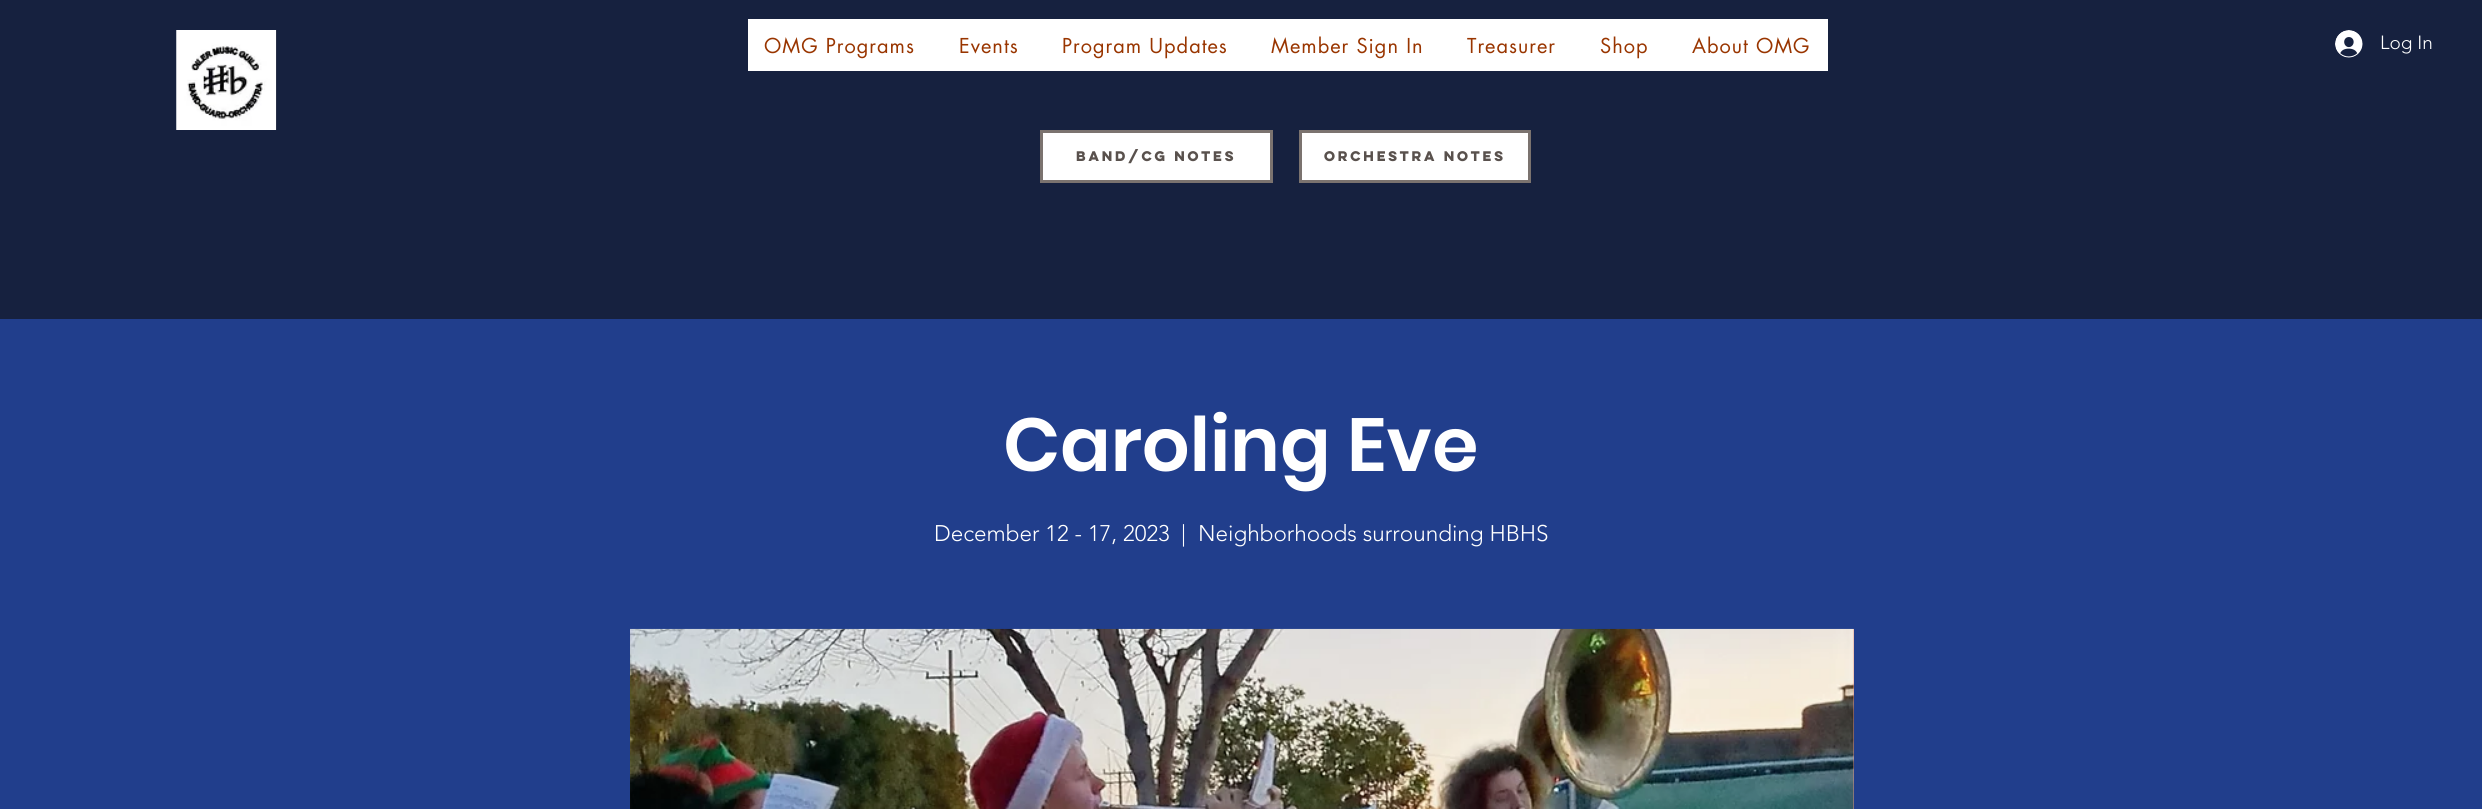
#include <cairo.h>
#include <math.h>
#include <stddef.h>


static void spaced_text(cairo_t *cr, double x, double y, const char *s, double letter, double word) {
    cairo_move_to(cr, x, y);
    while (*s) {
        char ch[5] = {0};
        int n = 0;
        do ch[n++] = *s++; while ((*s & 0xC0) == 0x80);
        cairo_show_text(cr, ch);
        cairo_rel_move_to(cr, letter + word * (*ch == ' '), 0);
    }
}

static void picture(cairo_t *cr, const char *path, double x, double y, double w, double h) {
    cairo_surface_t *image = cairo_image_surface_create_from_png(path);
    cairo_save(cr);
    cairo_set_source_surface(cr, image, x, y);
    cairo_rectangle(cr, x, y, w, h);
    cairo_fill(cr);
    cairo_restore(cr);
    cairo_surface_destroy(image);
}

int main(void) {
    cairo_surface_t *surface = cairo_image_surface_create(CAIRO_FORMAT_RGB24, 2482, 809);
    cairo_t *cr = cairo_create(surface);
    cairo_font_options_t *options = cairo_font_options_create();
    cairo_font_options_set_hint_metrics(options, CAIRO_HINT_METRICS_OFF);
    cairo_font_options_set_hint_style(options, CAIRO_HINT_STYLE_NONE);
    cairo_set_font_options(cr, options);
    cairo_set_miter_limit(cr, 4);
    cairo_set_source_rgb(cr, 0.227, 0.341, 0.651);
    cairo_paint(cr);
    cairo_set_source_rgb(cr, 0.086, 0.129, 0.247);
    cairo_rectangle(cr, 0, 0, 276, 319);
    cairo_fill(cr);
    picture(cr, "img1.png", 176, 30, 101, 100);
    cairo_set_source_rgba(cr, 0, 0, 0, 0.62);
    cairo_rectangle(cr, 276, 0, 2206, 319);
    cairo_fill(cr);
    cairo_set_source_rgb(cr, 1, 1, 1);
    cairo_rectangle(cr, 748, 19, 1080, 52);
    cairo_fill(cr);
    cairo_select_font_face(cr, "futura", CAIRO_FONT_SLANT_NORMAL, CAIRO_FONT_WEIGHT_NORMAL);
    cairo_set_font_size(cr, 20);
    cairo_set_source_rgb(cr, 0.6, 0.208, 0);
    spaced_text(cr, 764, 53, "OMG Programs", 1, 0);
    spaced_text(cr, 959, 53, "Events", 1, 0);
    spaced_text(cr, 1062, 53, "Program Updates", 1, 0);
    spaced_text(cr, 1271, 53, "Member Sign In", 1, 0);
    spaced_text(cr, 1467, 53, "Treasurer", 1, 0);
    spaced_text(cr, 1600, 53, "Shop", 1, 0);
    spaced_text(cr, 1692, 53, "About OMG", 1, 0);
    picture(cr, "img2.png", 2335, 30, 28, 28);
    cairo_select_font_face(cr, "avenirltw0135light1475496 Light", CAIRO_FONT_SLANT_NORMAL, CAIRO_FONT_WEIGHT_NORMAL);
    cairo_set_font_size(cr, 19);
    cairo_set_source_rgb(cr, 1, 1, 1);
    cairo_move_to(cr, 2380, 49);
    cairo_show_text(cr, "Log In");
    cairo_rectangle(cr, 1041.5, 131.5, 230, 50);
    cairo_fill_preserve(cr);
    cairo_set_source_rgb(cr, 0.482, 0.451, 0.435);
    cairo_set_line_width(cr, 3);
    cairo_stroke(cr);
    cairo_select_font_face(cr, "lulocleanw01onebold", CAIRO_FONT_SLANT_NORMAL, CAIRO_FONT_WEIGHT_BOLD);
    cairo_set_font_size(cr, 12.5);
    cairo_set_source_rgb(cr, 0.349, 0.318, 0.302);
    cairo_move_to(cr, 1076, 161);
    cairo_show_text(cr, "Band/CG Notes");
    cairo_set_source_rgb(cr, 1, 1, 1);
    cairo_rectangle(cr, 1300.5, 131.5, 229, 50);
    cairo_fill_preserve(cr);
    cairo_set_source_rgb(cr, 0.482, 0.451, 0.435);
    cairo_stroke(cr);
    cairo_set_source_rgb(cr, 0.349, 0.318, 0.302);
    cairo_move_to(cr, 1324, 161);
    cairo_show_text(cr, "Orchestra Notes");
    cairo_set_source_rgb(cr, 0.129, 0.243, 0.549);
    cairo_rectangle(cr, 0, 319, 2482, 490);
    cairo_fill(cr);
    cairo_select_font_face(cr, "Poppins SemiBold", CAIRO_FONT_SLANT_NORMAL, CAIRO_FONT_WEIGHT_NORMAL);
    cairo_set_font_size(cr, 75);
    cairo_set_source_rgb(cr, 1, 1, 1);
    cairo_move_to(cr, 1003, 471);
    cairo_show_text(cr, "Caroling Eve");
    cairo_select_font_face(cr, "avenirltw0135light1475496 Light", CAIRO_FONT_SLANT_NORMAL, CAIRO_FONT_WEIGHT_NORMAL);
    cairo_set_font_size(cr, 22.5);
    cairo_move_to(cr, 934, 541);
    cairo_show_text(cr, "December 12 - 17, 2023");
    cairo_move_to(cr, 1181, 541);
    cairo_show_text(cr, "|");
    cairo_move_to(cr, 1198, 541);
    cairo_show_text(cr, "Neighborhoods surrounding HBHS");
    cairo_set_source_rgb(cr, 0.918, 0.6, 0.553);
    cairo_rectangle(cr, 1853, 629, 1, 180);
    cairo_fill(cr);
    picture(cr, "img3.png", 630, 628, 1224, 181);
    cairo_surface_write_to_png(surface, "page.png");
    cairo_font_options_destroy(options);
    cairo_destroy(cr);
    cairo_surface_destroy(surface);
    return 0;
}
